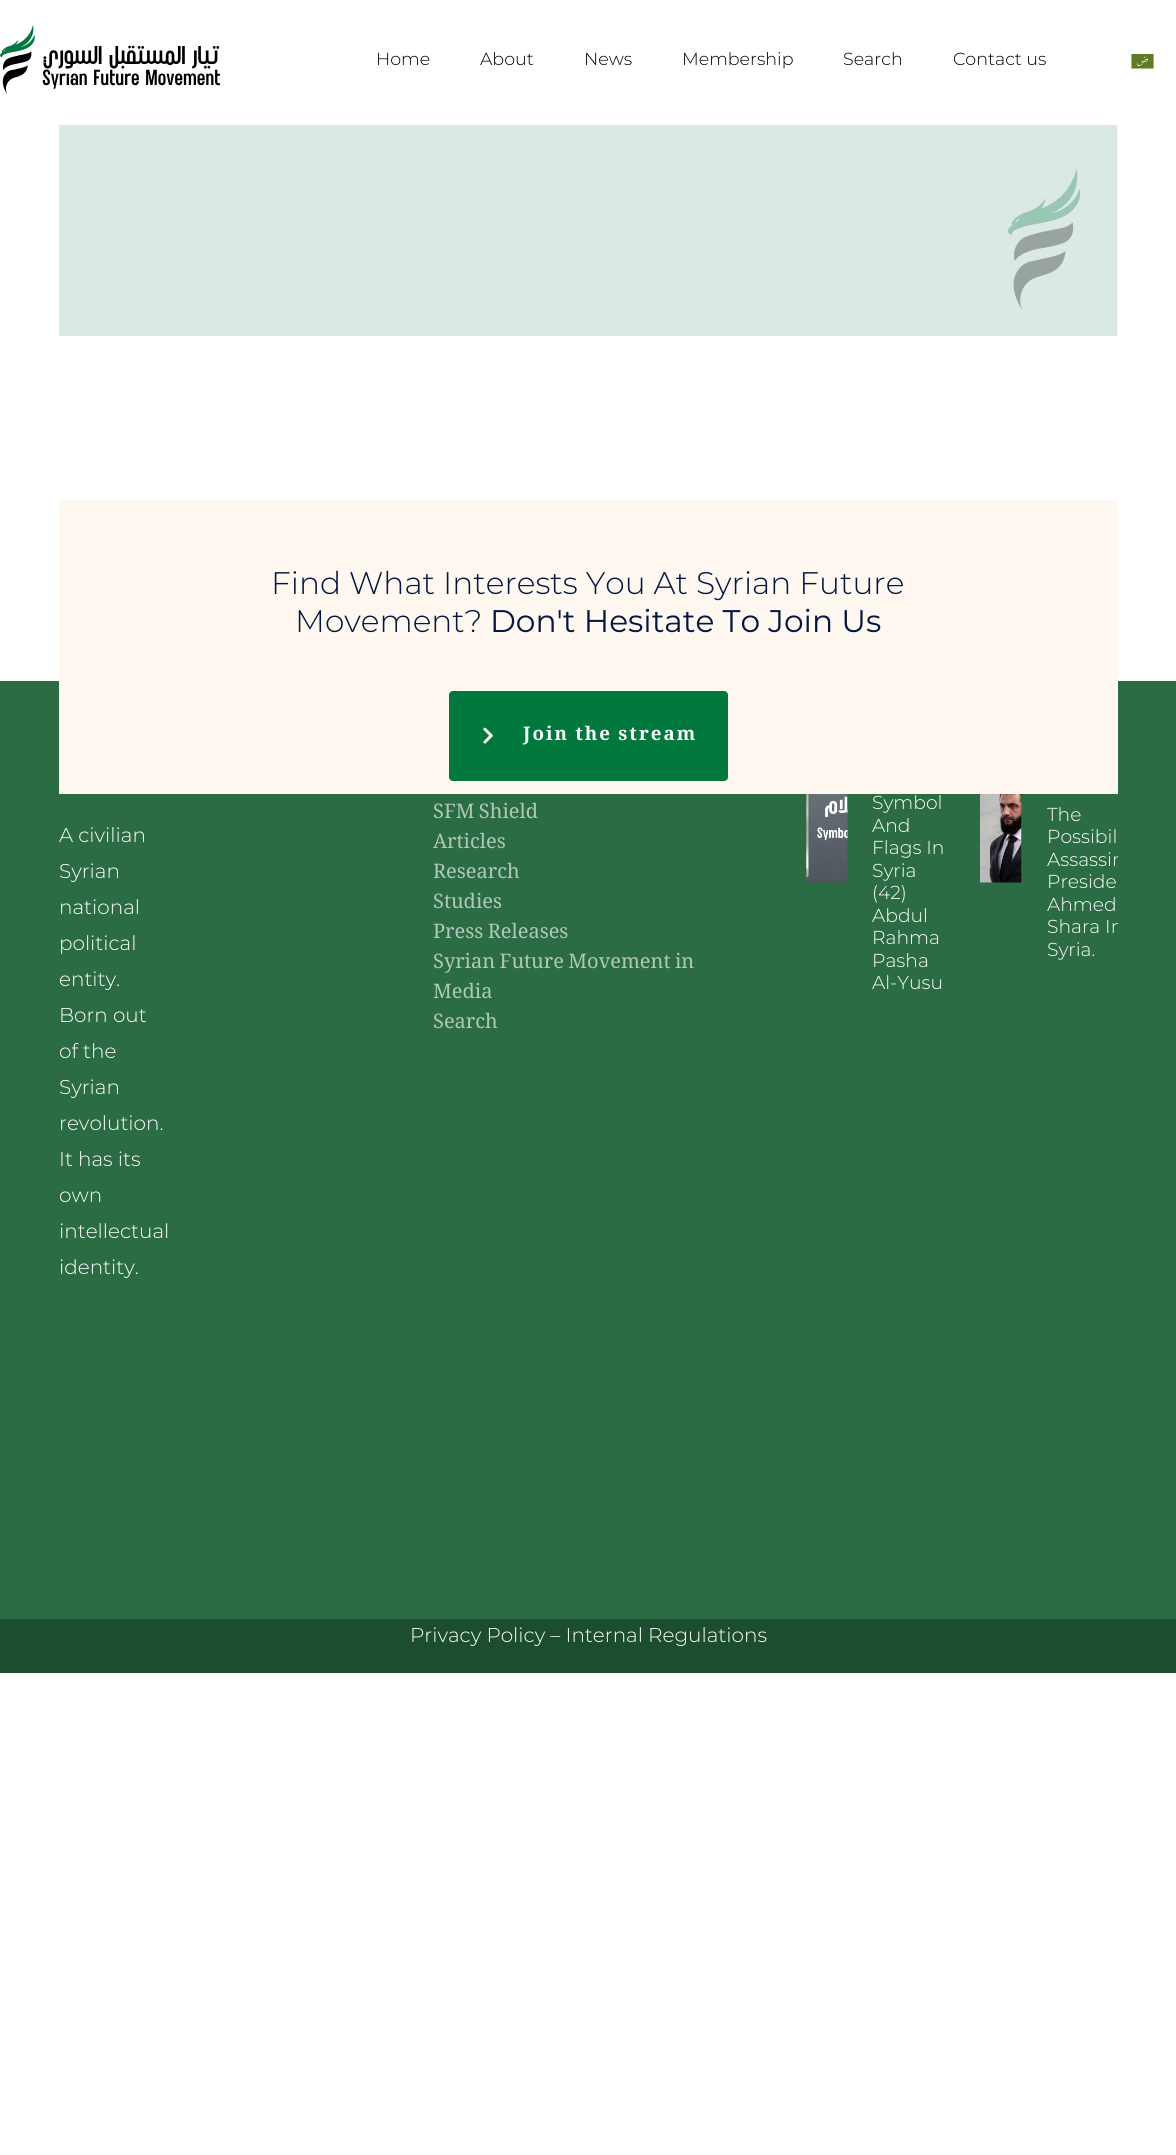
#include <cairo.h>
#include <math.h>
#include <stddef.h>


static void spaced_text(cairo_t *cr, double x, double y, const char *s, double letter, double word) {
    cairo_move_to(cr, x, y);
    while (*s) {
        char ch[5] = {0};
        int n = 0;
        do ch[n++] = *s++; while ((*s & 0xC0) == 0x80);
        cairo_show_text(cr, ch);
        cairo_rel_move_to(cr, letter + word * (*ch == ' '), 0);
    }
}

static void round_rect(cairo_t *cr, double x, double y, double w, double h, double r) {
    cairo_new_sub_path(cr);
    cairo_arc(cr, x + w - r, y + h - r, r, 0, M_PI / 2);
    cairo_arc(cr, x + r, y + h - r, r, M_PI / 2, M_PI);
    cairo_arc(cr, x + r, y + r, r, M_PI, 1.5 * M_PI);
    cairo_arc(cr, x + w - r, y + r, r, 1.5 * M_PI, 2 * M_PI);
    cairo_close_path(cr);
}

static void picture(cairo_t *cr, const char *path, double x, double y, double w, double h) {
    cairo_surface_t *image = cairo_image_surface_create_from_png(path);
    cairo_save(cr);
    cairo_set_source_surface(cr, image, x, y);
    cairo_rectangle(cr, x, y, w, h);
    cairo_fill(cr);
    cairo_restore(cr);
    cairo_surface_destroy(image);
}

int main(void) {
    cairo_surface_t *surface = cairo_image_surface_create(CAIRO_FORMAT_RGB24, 1176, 2155);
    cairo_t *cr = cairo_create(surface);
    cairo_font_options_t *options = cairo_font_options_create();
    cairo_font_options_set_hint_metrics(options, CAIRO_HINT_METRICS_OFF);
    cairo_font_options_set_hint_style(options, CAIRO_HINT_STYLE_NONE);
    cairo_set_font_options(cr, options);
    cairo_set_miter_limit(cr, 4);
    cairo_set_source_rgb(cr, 1, 1, 1);
    cairo_paint(cr);
    picture(cr, "img1.png", 0, 25, 220, 69);
    cairo_select_font_face(cr, "Montserrat Light", CAIRO_FONT_SLANT_NORMAL, CAIRO_FONT_WEIGHT_NORMAL);
    cairo_set_font_size(cr, 17.5);
    cairo_set_source_rgb(cr, 0, 0, 0);
    cairo_move_to(cr, 376, 65);
    cairo_show_text(cr, "Home");
    cairo_move_to(cr, 480, 65);
    cairo_show_text(cr, "About");
    cairo_move_to(cr, 584, 65);
    cairo_show_text(cr, "News");
    cairo_move_to(cr, 682, 65);
    cairo_show_text(cr, "Membership");
    cairo_move_to(cr, 843, 65);
    cairo_show_text(cr, "Search");
    cairo_move_to(cr, 953, 65);
    cairo_show_text(cr, "Contact us");
    picture(cr, "img2.png", 1131, 54, 23, 15);
    cairo_set_source_rgb(cr, 0.953, 0.961, 0.973);
    cairo_rectangle(cr, 59, 125, 1059, 211);
    cairo_fill(cr);
    picture(cr, "img3.png", 59, 125, 1058, 211);
    cairo_set_source_rgb(cr, 0.173, 0.424, 0.267);
    cairo_rectangle(cr, 0, 681, 1176, 938);
    cairo_fill(cr);
    cairo_set_source_rgb(cr, 1, 0.969, 0.945);
    cairo_rectangle(cr, 59, 500, 1059, 294);
    cairo_fill(cr);
    cairo_set_font_size(cr, 31.25);
    cairo_set_source_rgb(cr, 0.004, 0.086, 0.251);
    cairo_move_to(cr, 271, 594);
    cairo_show_text(cr, "Find What Interests You At Syrian Future");
    cairo_move_to(cr, 295, 632);
    cairo_show_text(cr, "Movement?");
    cairo_select_font_face(cr, "Montserrat", CAIRO_FONT_SLANT_NORMAL, CAIRO_FONT_WEIGHT_NORMAL);
    cairo_move_to(cr, 490, 632);
    cairo_show_text(cr, "Don't Hesitate To Join Us");
    cairo_set_source_rgb(cr, 0, 0.471, 0.243);
    round_rect(cr, 449, 691, 279, 90, 4);
    cairo_fill(cr);
    picture(cr, "img4.png", 483, 727, 10, 17);
    cairo_select_font_face(cr, "Noto Naskh Arabic", CAIRO_FONT_SLANT_NORMAL, CAIRO_FONT_WEIGHT_BOLD);
    cairo_set_font_size(cr, 18.75);
    cairo_set_source_rgb(cr, 1, 1, 1);
    spaced_text(cr, 523, 740, "Join the stream", 2, 0);
    cairo_select_font_face(cr, "Montserrat Light", CAIRO_FONT_SLANT_NORMAL, CAIRO_FONT_WEIGHT_NORMAL);
    cairo_set_font_size(cr, 20);
    cairo_move_to(cr, 59, 842);
    cairo_show_text(cr, "A civilian");
    cairo_move_to(cr, 59, 878);
    cairo_show_text(cr, "Syrian");
    cairo_move_to(cr, 59, 914);
    cairo_show_text(cr, "national");
    cairo_move_to(cr, 59, 950);
    cairo_show_text(cr, "political");
    cairo_move_to(cr, 59, 986);
    cairo_show_text(cr, "entity.");
    cairo_move_to(cr, 59, 1022);
    cairo_show_text(cr, "Born out");
    cairo_move_to(cr, 59, 1058);
    cairo_show_text(cr, "of the");
    cairo_move_to(cr, 59, 1094);
    cairo_show_text(cr, "Syrian");
    cairo_move_to(cr, 59, 1130);
    cairo_show_text(cr, "revolution.");
    cairo_move_to(cr, 59, 1166);
    cairo_show_text(cr, "It has its");
    cairo_move_to(cr, 59, 1202);
    cairo_show_text(cr, "own");
    cairo_move_to(cr, 59, 1238);
    cairo_show_text(cr, "intellectual");
    cairo_move_to(cr, 59, 1274);
    cairo_show_text(cr, "identity.");
    cairo_select_font_face(cr, "Noto Naskh Arabic", CAIRO_FONT_SLANT_NORMAL, CAIRO_FONT_WEIGHT_NORMAL);
    cairo_set_source_rgb(cr, 0.69, 0.784, 0.725);
    cairo_move_to(cr, 433, 818);
    cairo_show_text(cr, "SFM Shield");
    cairo_move_to(cr, 433, 848);
    cairo_show_text(cr, "Articles");
    cairo_move_to(cr, 433, 878);
    cairo_show_text(cr, "Research");
    cairo_move_to(cr, 433, 908);
    cairo_show_text(cr, "Studies");
    cairo_move_to(cr, 433, 938);
    cairo_show_text(cr, "Press Releases");
    cairo_move_to(cr, 433, 968);
    cairo_show_text(cr, "Syrian Future Movement in");
    cairo_move_to(cr, 433, 998);
    cairo_show_text(cr, "Media");
    cairo_move_to(cr, 433, 1028);
    cairo_show_text(cr, "Search");
    picture(cr, "img5.png", 806, 794, 42, 89);
    cairo_select_font_face(cr, "Montserrat Light", CAIRO_FONT_SLANT_NORMAL, CAIRO_FONT_WEIGHT_NORMAL);
    cairo_set_font_size(cr, 18.75);
    cairo_set_source_rgb(cr, 1, 1, 1);
    cairo_move_to(cr, 872, 809);
    cairo_show_text(cr, "Symbol");
    cairo_move_to(cr, 872, 832);
    cairo_show_text(cr, "And");
    cairo_move_to(cr, 872, 854);
    cairo_show_text(cr, "Flags In");
    cairo_move_to(cr, 872, 877);
    cairo_show_text(cr, "Syria");
    cairo_move_to(cr, 872, 899);
    cairo_show_text(cr, "(42)");
    cairo_move_to(cr, 872, 922);
    cairo_show_text(cr, "Abdul");
    cairo_move_to(cr, 872, 944);
    cairo_show_text(cr, "Rahma");
    cairo_move_to(cr, 872, 967);
    cairo_show_text(cr, "Pasha");
    cairo_move_to(cr, 872, 989);
    cairo_show_text(cr, "Al-Yusu");
    picture(cr, "img6.png", 980, 794, 42, 89);
    cairo_move_to(cr, 1047, 821);
    cairo_show_text(cr, "The");
    cairo_move_to(cr, 1047, 843);
    cairo_show_text(cr, "Possibil");
    cairo_save(cr);
    cairo_rectangle(cr, 980, 770, 138, 225);
    cairo_clip(cr);
    cairo_move_to(cr, 1047, 866);
    cairo_show_text(cr, "Assassin");
    cairo_restore(cr);
    cairo_move_to(cr, 1047, 888);
    cairo_show_text(cr, "Preside");
    cairo_move_to(cr, 1047, 911);
    cairo_show_text(cr, "Ahmed");
    cairo_save(cr);
    cairo_rectangle(cr, 980, 770, 138, 225);
    cairo_clip(cr);
    cairo_move_to(cr, 1047, 933);
    cairo_show_text(cr, "Shara In");
    cairo_restore(cr);
    cairo_move_to(cr, 1047, 956);
    cairo_show_text(cr, "Syria.");
    cairo_set_source_rgb(cr, 0.11, 0.302, 0.18);
    cairo_rectangle(cr, 0, 1619, 1176, 54);
    cairo_fill(cr);
    cairo_set_font_size(cr, 20);
    cairo_set_source_rgb(cr, 1, 1, 1);
    cairo_move_to(cr, 410, 1642);
    cairo_show_text(cr, "Privacy Policy – Internal Regulations");
    cairo_surface_write_to_png(surface, "page.png");
    cairo_font_options_destroy(options);
    cairo_destroy(cr);
    cairo_surface_destroy(surface);
    return 0;
}
